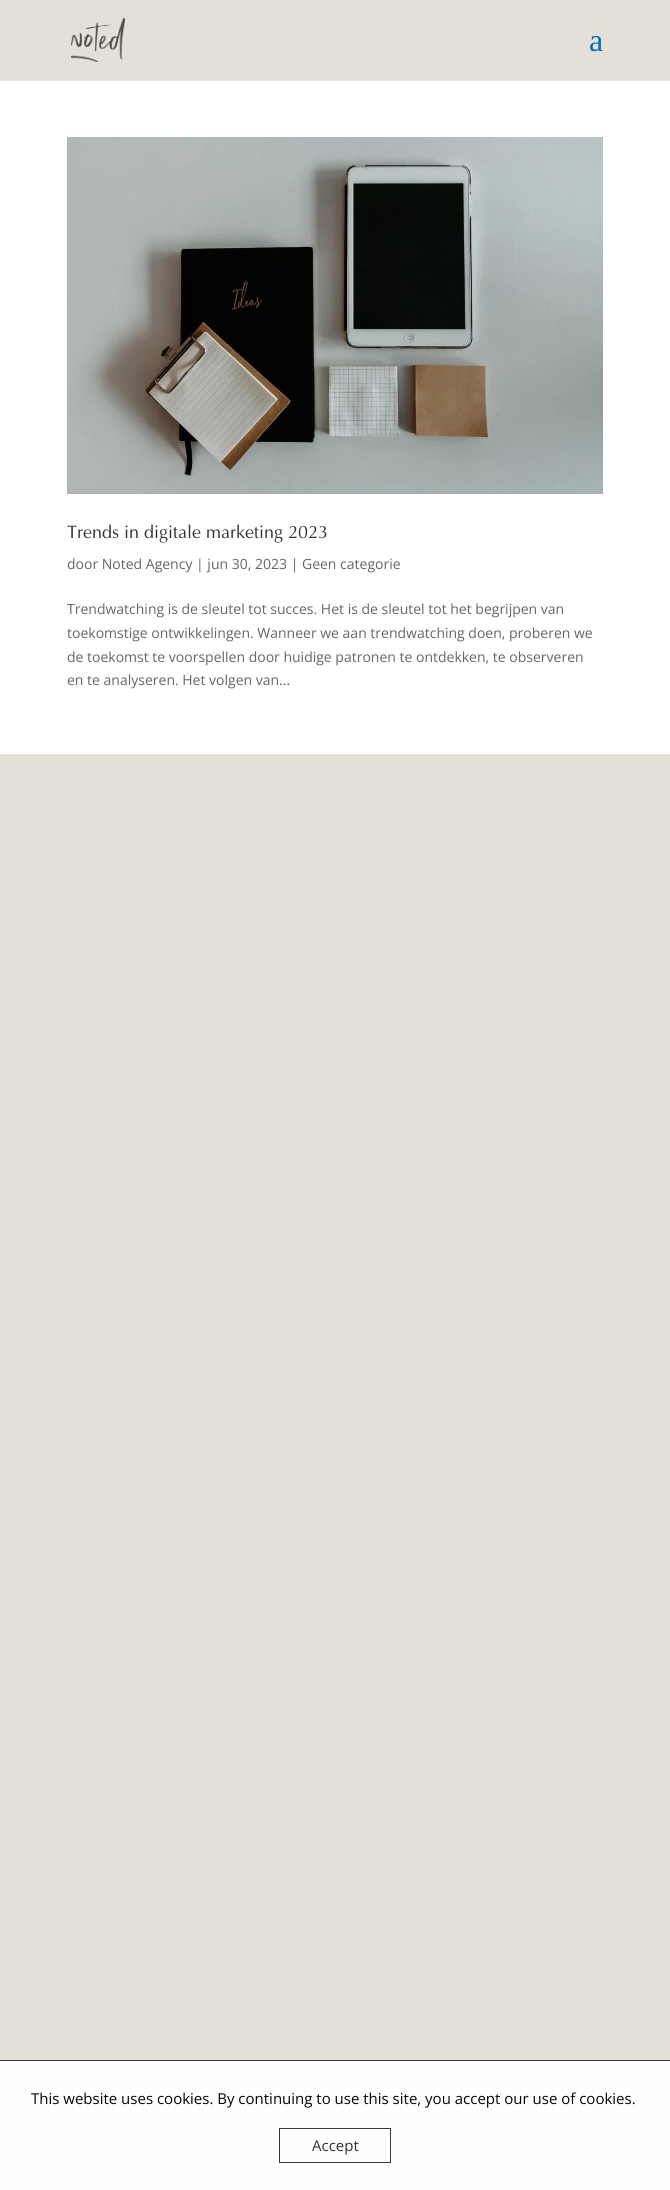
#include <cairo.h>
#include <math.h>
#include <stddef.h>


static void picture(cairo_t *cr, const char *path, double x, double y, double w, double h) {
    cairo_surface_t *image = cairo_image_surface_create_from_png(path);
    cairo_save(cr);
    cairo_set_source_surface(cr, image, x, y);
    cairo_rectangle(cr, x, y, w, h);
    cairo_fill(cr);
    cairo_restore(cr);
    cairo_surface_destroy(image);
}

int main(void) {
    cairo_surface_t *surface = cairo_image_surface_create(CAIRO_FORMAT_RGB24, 670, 2190);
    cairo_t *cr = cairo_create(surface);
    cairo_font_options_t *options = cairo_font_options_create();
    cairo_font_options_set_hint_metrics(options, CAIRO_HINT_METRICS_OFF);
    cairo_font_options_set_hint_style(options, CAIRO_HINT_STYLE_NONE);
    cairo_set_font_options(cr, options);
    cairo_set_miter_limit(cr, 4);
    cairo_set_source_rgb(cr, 0.898, 0.878, 0.843);
    cairo_paint(cr);
    cairo_set_source_rgb(cr, 0.902, 0.902, 0.902);
    cairo_rectangle(cr, 0, 80, 670, 1);
    cairo_fill(cr);
    picture(cr, "img1.png", 71, 18, 54, 44);
    cairo_select_font_face(cr, "Liberation Serif", CAIRO_FONT_SLANT_NORMAL, CAIRO_FONT_WEIGHT_NORMAL);
    cairo_set_font_size(cr, 32);
    cairo_set_source_rgb(cr, 0, 0.443, 0.737);
    cairo_move_to(cr, 589, 51);
    cairo_show_text(cr, "a");
    cairo_set_source_rgb(cr, 1, 1, 1);
    cairo_rectangle(cr, 0, 81, 670, 673);
    cairo_fill(cr);
    picture(cr, "img2.png", 67, 137, 536, 357);
    cairo_select_font_face(cr, "Optima", CAIRO_FONT_SLANT_NORMAL, CAIRO_FONT_WEIGHT_NORMAL);
    cairo_set_font_size(cr, 18);
    cairo_set_source_rgb(cr, 0.2, 0.2, 0.2);
    cairo_move_to(cr, 67, 538);
    cairo_show_text(cr, "Trends in digitale marketing 2023");
    cairo_select_font_face(cr, "Open Sans", CAIRO_FONT_SLANT_NORMAL, CAIRO_FONT_WEIGHT_NORMAL);
    cairo_set_font_size(cr, 14);
    cairo_set_source_rgb(cr, 0.4, 0.4, 0.4);
    cairo_move_to(cr, 67, 569);
    cairo_show_text(cr, "door Noted Agency | jun 30, 2023 | Geen categorie");
    cairo_move_to(cr, 67, 614);
    cairo_show_text(cr, "Trendwatching is de sleutel tot succes. Het is de sleutel tot het begrijpen van");
    cairo_move_to(cr, 67, 638);
    cairo_show_text(cr, "toekomstige ontwikkelingen. Wanneer we aan trendwatching doen, proberen we");
    cairo_move_to(cr, 67, 662);
    cairo_show_text(cr, "de toekomst te voorspellen door huidige patronen te ontdekken, te observeren");
    cairo_move_to(cr, 67, 685);
    cairo_show_text(cr, "en te analyseren. Het volgen van...");
    cairo_set_source_rgb(cr, 0.996, 0.996, 0.996);
    cairo_rectangle(cr, 0, 2061, 670, 129);
    cairo_fill(cr);
    cairo_set_source_rgb(cr, 0.22, 0.22, 0.22);
    cairo_rectangle(cr, 0, 2060, 670, 1);
    cairo_fill(cr);
    cairo_set_font_size(cr, 15);
    cairo_set_source_rgb(cr, 0.027, 0.027, 0.024);
    cairo_move_to(cr, 31, 2104);
    cairo_show_text(cr, "This website uses cookies. By continuing to use this site, you accept our use of cookies.");
    cairo_rectangle(cr, 279.5, 2128.5, 111, 34);
    cairo_set_source_rgb(cr, 0.22, 0.22, 0.22);
    cairo_set_line_width(cr, 1);
    cairo_stroke(cr);
    cairo_set_source_rgb(cr, 0.2, 0.2, 0.2);
    cairo_move_to(cr, 312, 2151);
    cairo_show_text(cr, "Accept");
    cairo_surface_write_to_png(surface, "page.png");
    cairo_font_options_destroy(options);
    cairo_destroy(cr);
    cairo_surface_destroy(surface);
    return 0;
}
